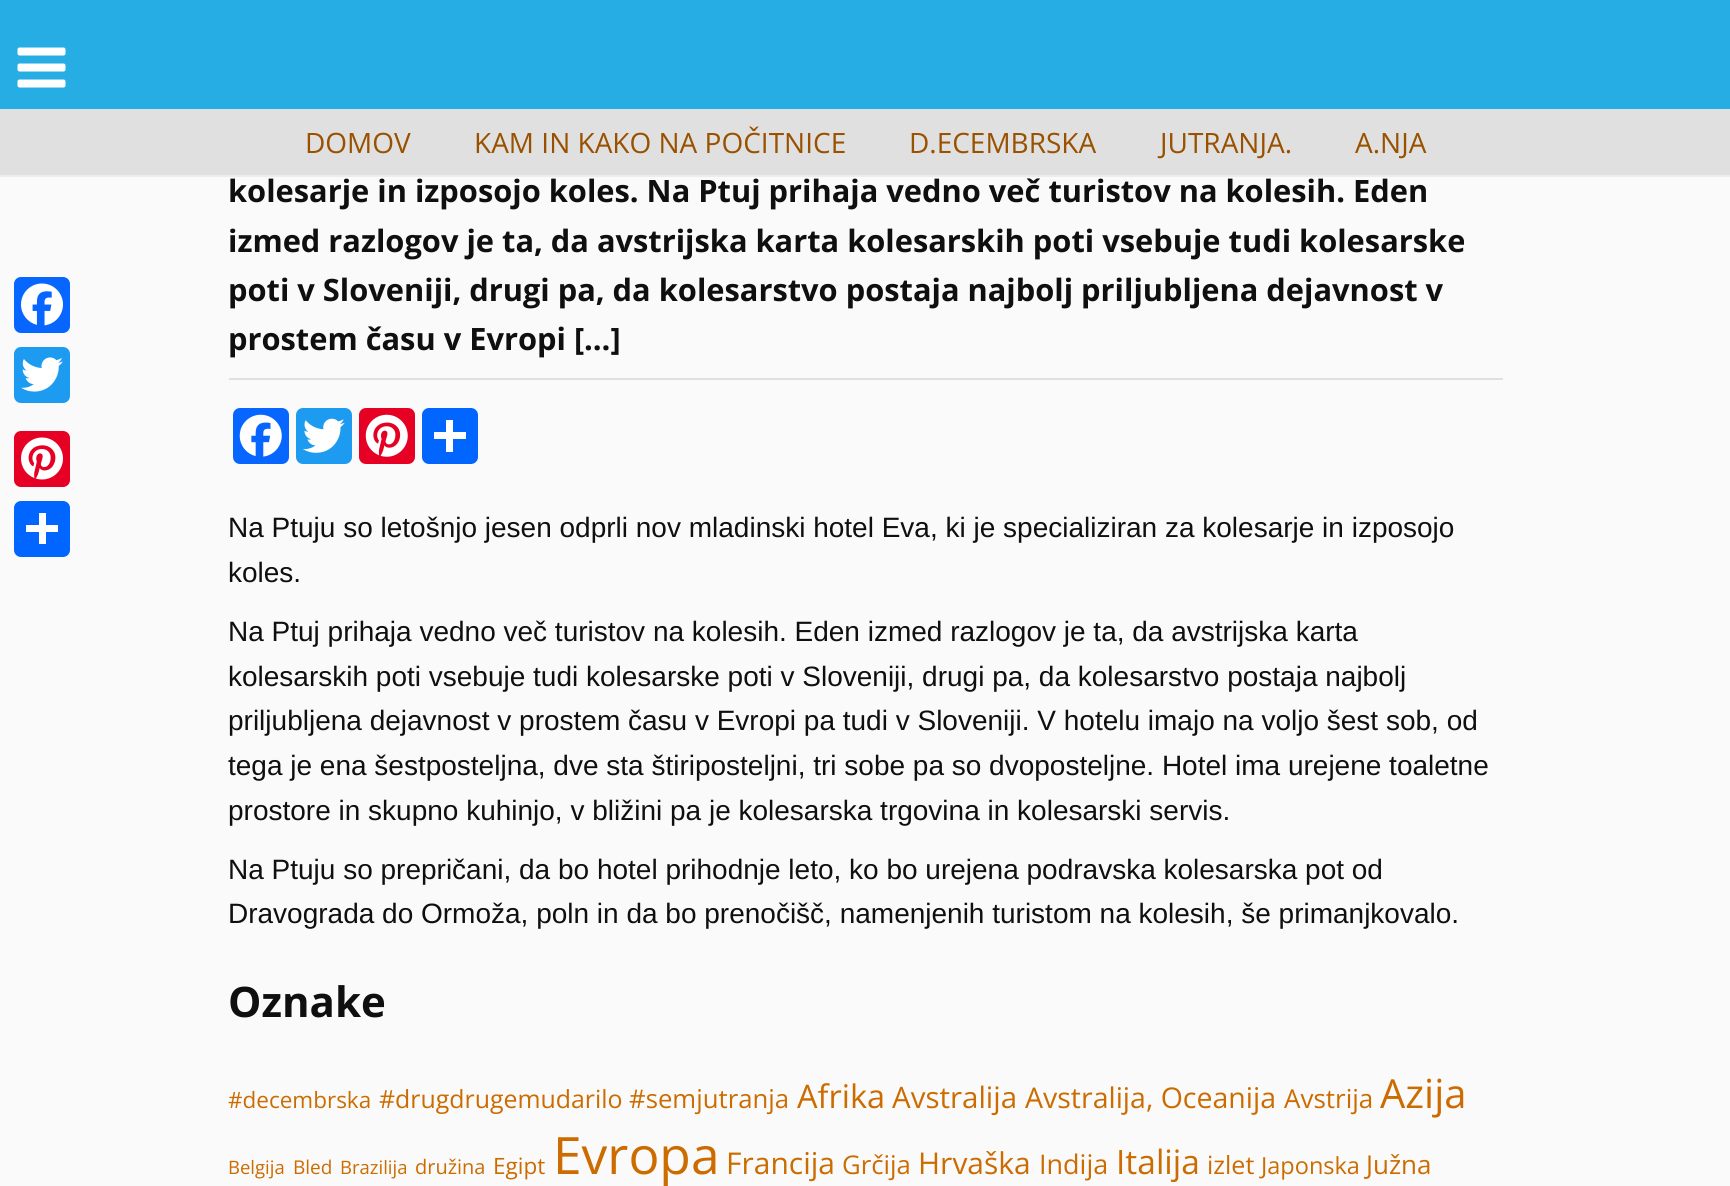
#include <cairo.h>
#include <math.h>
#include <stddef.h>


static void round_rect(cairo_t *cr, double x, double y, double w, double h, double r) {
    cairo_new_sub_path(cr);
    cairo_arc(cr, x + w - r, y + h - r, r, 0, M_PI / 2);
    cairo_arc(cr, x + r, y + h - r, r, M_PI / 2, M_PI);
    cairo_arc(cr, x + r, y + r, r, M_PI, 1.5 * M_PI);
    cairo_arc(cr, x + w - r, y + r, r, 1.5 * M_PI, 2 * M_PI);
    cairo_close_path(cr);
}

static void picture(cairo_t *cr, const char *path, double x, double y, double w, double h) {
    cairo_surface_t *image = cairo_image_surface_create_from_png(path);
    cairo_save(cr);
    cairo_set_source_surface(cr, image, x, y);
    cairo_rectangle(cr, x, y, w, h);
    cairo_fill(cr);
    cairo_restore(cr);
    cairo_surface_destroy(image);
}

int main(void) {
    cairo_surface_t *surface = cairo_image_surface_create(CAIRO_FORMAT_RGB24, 1730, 1186);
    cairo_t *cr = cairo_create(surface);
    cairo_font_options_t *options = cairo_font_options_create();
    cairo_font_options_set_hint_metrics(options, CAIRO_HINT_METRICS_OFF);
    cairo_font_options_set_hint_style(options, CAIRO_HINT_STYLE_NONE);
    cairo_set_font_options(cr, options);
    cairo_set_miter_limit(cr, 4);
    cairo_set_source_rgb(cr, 0.98, 0.98, 0.98);
    cairo_paint(cr);
    cairo_set_source_rgb(cr, 0.149, 0.678, 0.894);
    cairo_rectangle(cr, 0, 0, 1730, 109);
    cairo_fill(cr);
    cairo_set_source_rgb(cr, 0.929, 0.929, 0.929);
    cairo_rectangle(cr, 0, 175, 1730, 2);
    cairo_fill(cr);
    picture(cr, "img1.png", 17, 47, 49, 41);
    cairo_set_source_rgb(cr, 0.878, 0.878, 0.878);
    cairo_rectangle(cr, 0, 109, 1730, 66);
    cairo_fill(cr);
    cairo_select_font_face(cr, "Open Sans", CAIRO_FONT_SLANT_NORMAL, CAIRO_FONT_WEIGHT_NORMAL);
    cairo_set_font_size(cr, 28);
    cairo_set_source_rgb(cr, 0.6, 0.318, 0);
    cairo_move_to(cr, 305, 153);
    cairo_show_text(cr, "DOMOV");
    cairo_move_to(cr, 474, 153);
    cairo_show_text(cr, "KAM IN KAKO NA POČITNICE");
    cairo_move_to(cr, 909, 153);
    cairo_show_text(cr, "D.ECEMBRSKA");
    cairo_move_to(cr, 1160, 153);
    cairo_show_text(cr, "JUTRANJA.");
    cairo_move_to(cr, 1355, 153);
    cairo_show_text(cr, "A.NJA");
    cairo_set_source_rgb(cr, 0.031, 0.4, 1);
    round_rect(cr, 14, 277, 56, 56, 7);
    cairo_fill(cr);
    picture(cr, "img2.png", 21, 283, 42, 43);
    cairo_set_source_rgb(cr, 0.114, 0.608, 0.941);
    round_rect(cr, 14, 347, 56, 56, 7);
    cairo_fill(cr);
    picture(cr, "img3.png", 21, 357, 42, 35);
    cairo_set_source_rgb(cr, 0.902, 0, 0.137);
    round_rect(cr, 14, 431, 56, 56, 7);
    cairo_fill(cr);
    picture(cr, "img4.png", 21, 437, 42, 43);
    cairo_set_source_rgb(cr, 0.004, 0.4, 1);
    round_rect(cr, 14, 501, 56, 56, 7);
    cairo_fill(cr);
    cairo_set_source_rgb(cr, 1, 1, 1);
    cairo_rectangle(cr, 39, 513, 7, 31);
    cairo_fill(cr);
    cairo_rectangle(cr, 26, 525, 32, 7);
    cairo_fill(cr);
    cairo_select_font_face(cr, "Open Sans", CAIRO_FONT_SLANT_NORMAL, CAIRO_FONT_WEIGHT_BOLD);
    cairo_set_font_size(cr, 30.8);
    cairo_set_source_rgb(cr, 0.059, 0.059, 0.059);
    cairo_move_to(cr, 228, 202);
    cairo_show_text(cr, "kolesarje in izposojo koles. Na Ptuj prihaja vedno več turistov na kolesih. Eden");
    cairo_move_to(cr, 228, 252);
    cairo_show_text(cr, "izmed razlogov je ta, da avstrijska karta kolesarskih poti vsebuje tudi kolesarske");
    cairo_move_to(cr, 228, 301);
    cairo_show_text(cr, "poti v Sloveniji, drugi pa, da kolesarstvo postaja najbolj priljubljena dejavnost v");
    cairo_move_to(cr, 228, 350);
    cairo_show_text(cr, "prostem času v Evropi […]");
    cairo_set_source_rgb(cr, 0.878, 0.878, 0.878);
    cairo_rectangle(cr, 229, 378, 1274, 2);
    cairo_fill(cr);
    cairo_set_source_rgb(cr, 0.031, 0.4, 1);
    round_rect(cr, 233, 408, 56, 56, 7);
    cairo_fill(cr);
    picture(cr, "img5.png", 239, 414, 43, 43);
    cairo_set_source_rgb(cr, 0.114, 0.608, 0.941);
    round_rect(cr, 296, 408, 56, 56, 7);
    cairo_fill(cr);
    picture(cr, "img6.png", 303, 418, 42, 35);
    cairo_set_source_rgb(cr, 0.902, 0, 0.137);
    round_rect(cr, 359, 408, 56, 56, 7);
    cairo_fill(cr);
    picture(cr, "img7.png", 365, 414, 43, 43);
    cairo_set_source_rgb(cr, 0.004, 0.4, 1);
    round_rect(cr, 422, 408, 56, 56, 7);
    cairo_fill(cr);
    cairo_set_source_rgb(cr, 1, 1, 1);
    cairo_rectangle(cr, 446, 420, 7, 32);
    cairo_fill(cr);
    cairo_rectangle(cr, 434, 432, 32, 7);
    cairo_fill(cr);
    cairo_select_font_face(cr, "Liberation Sans", CAIRO_FONT_SLANT_NORMAL, CAIRO_FONT_WEIGHT_NORMAL);
    cairo_set_font_size(cr, 28);
    cairo_set_source_rgb(cr, 0.059, 0.059, 0.059);
    cairo_move_to(cr, 228, 537);
    cairo_show_text(cr, "Na Ptuju so letošnjo jesen odprli nov mladinski hotel Eva, ki je specializiran za kolesarje in izposojo");
    cairo_move_to(cr, 228, 582);
    cairo_show_text(cr, "koles.");
    cairo_move_to(cr, 228, 641);
    cairo_show_text(cr, "Na Ptuj prihaja vedno več turistov na kolesih. Eden izmed razlogov je ta, da avstrijska karta");
    cairo_move_to(cr, 228, 686);
    cairo_show_text(cr, "kolesarskih poti vsebuje tudi kolesarske poti v Sloveniji, drugi pa, da kolesarstvo postaja najbolj");
    cairo_move_to(cr, 228, 730);
    cairo_show_text(cr, "priljubljena dejavnost v prostem času v Evropi pa tudi v Sloveniji. V hotelu imajo na voljo šest sob, od");
    cairo_move_to(cr, 228, 775);
    cairo_show_text(cr, "tega je ena šestposteljna, dve sta štiriposteljni, tri sobe pa so dvoposteljne. Hotel ima urejene toaletne");
    cairo_move_to(cr, 228, 820);
    cairo_show_text(cr, "prostore in skupno kuhinjo, v bližini pa je kolesarska trgovina in kolesarski servis.");
    cairo_move_to(cr, 228, 879);
    cairo_show_text(cr, "Na Ptuju so prepričani, da bo hotel prihodnje leto, ko bo urejena podravska kolesarska pot od");
    cairo_move_to(cr, 228, 923);
    cairo_show_text(cr, "Dravograda do Ormoža, poln in da bo prenočišč, namenjenih turistom na kolesih, še primanjkovalo.");
    cairo_select_font_face(cr, "Open Sans", CAIRO_FONT_SLANT_NORMAL, CAIRO_FONT_WEIGHT_BOLD);
    cairo_set_font_size(cr, 42);
    cairo_move_to(cr, 228, 1017);
    cairo_show_text(cr, "Oznake");
    cairo_select_font_face(cr, "Open Sans", CAIRO_FONT_SLANT_NORMAL, CAIRO_FONT_WEIGHT_NORMAL);
    cairo_set_font_size(cr, 22.5);
    cairo_set_source_rgb(cr, 0.8, 0.424, 0);
    cairo_move_to(cr, 228, 1108);
    cairo_show_text(cr, "#decembrska");
    cairo_set_font_size(cr, 24.9);
    cairo_move_to(cr, 379, 1108);
    cairo_show_text(cr, "#drugdrugemudarilo");
    cairo_set_font_size(cr, 25.75);
    cairo_move_to(cr, 629, 1108);
    cairo_show_text(cr, "#semjutranja");
    cairo_set_font_size(cr, 32.5);
    cairo_move_to(cr, 797, 1108);
    cairo_show_text(cr, "Afrika");
    cairo_set_font_size(cr, 29.5);
    cairo_move_to(cr, 892, 1108);
    cairo_show_text(cr, "Avstralija");
    cairo_set_font_size(cr, 28.5);
    cairo_move_to(cr, 1025, 1108);
    cairo_show_text(cr, "Avstralija, Oceanija");
    cairo_set_font_size(cr, 26);
    cairo_move_to(cr, 1284, 1108);
    cairo_show_text(cr, "Avstrija");
    cairo_set_font_size(cr, 40);
    cairo_move_to(cr, 1380, 1108);
    cairo_show_text(cr, "Azija");
    cairo_set_font_size(cr, 18.5);
    cairo_move_to(cr, 228, 1174);
    cairo_show_text(cr, "Belgija");
    cairo_set_font_size(cr, 19);
    cairo_move_to(cr, 293, 1174);
    cairo_show_text(cr, "Bled");
    cairo_set_font_size(cr, 18.5);
    cairo_move_to(cr, 340, 1174);
    cairo_show_text(cr, "Brazilija");
    cairo_set_font_size(cr, 20);
    cairo_move_to(cr, 415, 1174);
    cairo_show_text(cr, "družina");
    cairo_set_font_size(cr, 22.5);
    cairo_move_to(cr, 493, 1174);
    cairo_show_text(cr, "Egipt");
    cairo_set_font_size(cr, 51.5);
    cairo_move_to(cr, 553, 1174);
    cairo_show_text(cr, "Evropa");
    cairo_set_font_size(cr, 30);
    cairo_move_to(cr, 726, 1174);
    cairo_show_text(cr, "Francija");
    cairo_set_font_size(cr, 25.75);
    cairo_move_to(cr, 842, 1174);
    cairo_show_text(cr, "Grčija");
    cairo_set_font_size(cr, 30);
    cairo_move_to(cr, 918, 1174);
    cairo_show_text(cr, "Hrvaška");
    cairo_set_font_size(cr, 27);
    cairo_move_to(cr, 1039, 1174);
    cairo_show_text(cr, "Indija");
    cairo_set_font_size(cr, 33.5);
    cairo_move_to(cr, 1116, 1174);
    cairo_show_text(cr, "Italija");
    cairo_set_font_size(cr, 25);
    cairo_move_to(cr, 1207, 1174);
    cairo_show_text(cr, "izlet");
    cairo_set_font_size(cr, 23.5);
    cairo_move_to(cr, 1261, 1174);
    cairo_show_text(cr, "Japonska");
    cairo_set_font_size(cr, 26);
    cairo_move_to(cr, 1366, 1174);
    cairo_show_text(cr, "Južna");
    cairo_surface_write_to_png(surface, "page.png");
    cairo_font_options_destroy(options);
    cairo_destroy(cr);
    cairo_surface_destroy(surface);
    return 0;
}
